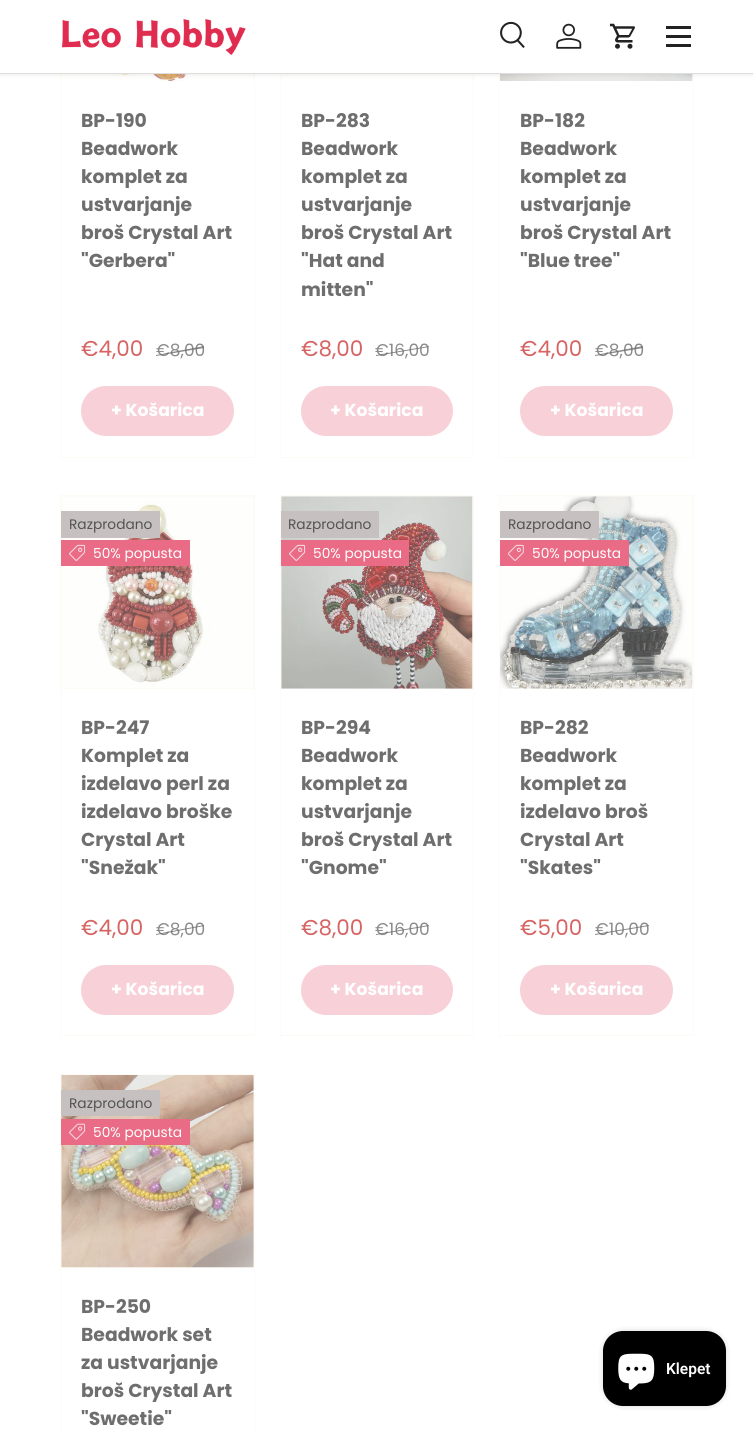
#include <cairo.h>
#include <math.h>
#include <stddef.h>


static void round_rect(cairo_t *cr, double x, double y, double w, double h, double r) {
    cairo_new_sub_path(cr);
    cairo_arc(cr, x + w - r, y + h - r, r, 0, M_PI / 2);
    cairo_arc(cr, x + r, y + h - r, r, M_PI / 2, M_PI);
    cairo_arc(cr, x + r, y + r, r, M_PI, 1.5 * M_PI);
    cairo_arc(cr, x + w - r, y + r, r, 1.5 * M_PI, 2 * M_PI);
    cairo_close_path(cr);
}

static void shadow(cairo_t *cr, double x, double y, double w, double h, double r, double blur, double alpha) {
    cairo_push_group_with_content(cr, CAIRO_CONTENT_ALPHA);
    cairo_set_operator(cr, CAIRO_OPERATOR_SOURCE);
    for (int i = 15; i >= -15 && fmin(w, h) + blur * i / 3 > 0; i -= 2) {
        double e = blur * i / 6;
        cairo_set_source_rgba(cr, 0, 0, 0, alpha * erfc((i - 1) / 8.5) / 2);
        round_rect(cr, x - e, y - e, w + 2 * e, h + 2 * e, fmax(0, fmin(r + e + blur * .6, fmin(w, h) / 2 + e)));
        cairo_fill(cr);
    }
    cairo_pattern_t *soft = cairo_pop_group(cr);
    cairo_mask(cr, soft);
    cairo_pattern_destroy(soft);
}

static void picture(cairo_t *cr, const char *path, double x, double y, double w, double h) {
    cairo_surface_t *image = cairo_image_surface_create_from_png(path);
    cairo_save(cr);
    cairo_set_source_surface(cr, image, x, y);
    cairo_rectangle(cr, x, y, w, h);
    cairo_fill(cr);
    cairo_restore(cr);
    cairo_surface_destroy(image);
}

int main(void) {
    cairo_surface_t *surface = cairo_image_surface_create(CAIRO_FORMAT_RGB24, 753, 1432);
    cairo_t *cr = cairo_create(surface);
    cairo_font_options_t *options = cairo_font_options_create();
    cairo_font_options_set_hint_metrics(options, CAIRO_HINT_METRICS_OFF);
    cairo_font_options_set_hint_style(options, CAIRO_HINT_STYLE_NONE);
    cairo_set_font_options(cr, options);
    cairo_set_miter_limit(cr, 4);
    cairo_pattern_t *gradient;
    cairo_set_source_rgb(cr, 1, 1, 1);
    cairo_paint(cr);
    cairo_rectangle(cr, 60.5, -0.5, 194, 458);
    cairo_set_source_rgb(cr, 0.992, 0.984, 0.961);
    cairo_set_line_width(cr, 1);
    cairo_stroke(cr);
    cairo_rectangle(cr, 61, 74, 193, 7);
    cairo_fill(cr);
    picture(cr, "img5.png", 61, 74, 192, 8);
    cairo_rectangle(cr, 280.5, -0.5, 193, 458);
    cairo_stroke(cr);
    cairo_rectangle(cr, 281, 74, 192, 7);
    cairo_fill(cr);
    picture(cr, "img6.png", 282, 74, 190, 7);
    cairo_rectangle(cr, 499.5, -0.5, 194, 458);
    cairo_stroke(cr);
    cairo_rectangle(cr, 500, 74, 193, 7);
    cairo_fill(cr);
    picture(cr, "img7.png", 500, 74, 193, 7);
    cairo_set_source_rgb(cr, 0, 0, 0);
    shadow(cr, -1, -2, 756, 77, 0, 2, 0.08);
    cairo_set_source_rgb(cr, 1, 1, 1);
    cairo_rectangle(cr, 0, 0, 753, 73);
    cairo_fill(cr);
    picture(cr, "img1.png", 61, 19, 185, 36);
    picture(cr, "img2.png", 500, 21, 25, 27);
    picture(cr, "img3.png", 556, 23, 26, 26);
    picture(cr, "img4.png", 610, 23, 25, 26);
    cairo_set_source_rgb(cr, 0.133, 0.133, 0.133);
    cairo_rectangle(cr, 666, 26, 25, 3);
    cairo_fill(cr);
    cairo_rectangle(cr, 666, 44, 25, 3);
    cairo_fill(cr);
    cairo_rectangle(cr, 666, 35, 25, 3);
    cairo_fill(cr);
    cairo_set_source_rgb(cr, 0.871, 0.871, 0.871);
    cairo_rectangle(cr, 0, 73, 753, 1);
    cairo_fill(cr);
    cairo_select_font_face(cr, "Poppins", CAIRO_FONT_SLANT_NORMAL, CAIRO_FONT_WEIGHT_BOLD);
    cairo_set_font_size(cr, 18.75);
    cairo_set_source_rgb(cr, 0.431, 0.431, 0.431);
    cairo_move_to(cr, 81, 127);
    cairo_show_text(cr, "BP-190");
    cairo_move_to(cr, 81, 155);
    cairo_show_text(cr, "Beadwork");
    cairo_move_to(cr, 81, 183);
    cairo_show_text(cr, "komplet za");
    cairo_move_to(cr, 81, 211);
    cairo_show_text(cr, "ustvarjanje");
    cairo_move_to(cr, 81, 239);
    cairo_show_text(cr, "broš Crystal Art");
    cairo_move_to(cr, 81, 267);
    cairo_show_text(cr, "\"Gerbera\"");
    cairo_select_font_face(cr, "Poppins", CAIRO_FONT_SLANT_NORMAL, CAIRO_FONT_WEIGHT_NORMAL);
    cairo_set_font_size(cr, 21.5);
    cairo_set_source_rgb(cr, 0.843, 0.388, 0.388);
    cairo_move_to(cr, 81, 356);
    cairo_show_text(cr, "€4,00");
    cairo_set_font_size(cr, 17);
    cairo_set_source_rgb(cr, 0.545, 0.545, 0.545);
    cairo_move_to(cr, 156, 356);
    cairo_show_text(cr, "€8,00");
    cairo_set_source_rgba(cr, 0.431, 0.431, 0.431, 0.8);
    cairo_new_path(cr);
    cairo_move_to(cr, 156, 355);
    cairo_line_to(cr, 204, 346);
    cairo_line_to(cr, 204, 348);
    cairo_line_to(cr, 156, 356);
    cairo_close_path(cr);
    cairo_fill(cr);
    gradient = cairo_pattern_create_linear(89, 356, 531, 466);
    cairo_pattern_add_color_stop_rgba(gradient, 0.6, 0.973, 0.82, 0.847, 1);
    cairo_pattern_add_color_stop_rgba(gradient, 0.6, 0.965, 0.769, 0.808, 1);
    cairo_pattern_add_color_stop_rgba(gradient, 1, 0.965, 0.769, 0.808, 1);
    cairo_set_source(cr, gradient);
    cairo_pattern_destroy(gradient);
    round_rect(cr, 81, 386, 153, 50, 25);
    cairo_fill(cr);
    cairo_select_font_face(cr, "Poppins", CAIRO_FONT_SLANT_NORMAL, CAIRO_FONT_WEIGHT_BOLD);
    cairo_set_font_size(cr, 17.25);
    cairo_set_source_rgb(cr, 1, 1, 1);
    cairo_move_to(cr, 111, 416);
    cairo_show_text(cr, "+ Košarica");
    cairo_set_font_size(cr, 18.75);
    cairo_set_source_rgb(cr, 0.431, 0.431, 0.431);
    cairo_move_to(cr, 301, 127);
    cairo_show_text(cr, "BP-283");
    cairo_move_to(cr, 301, 155);
    cairo_show_text(cr, "Beadwork");
    cairo_move_to(cr, 301, 183);
    cairo_show_text(cr, "komplet za");
    cairo_move_to(cr, 301, 211);
    cairo_show_text(cr, "ustvarjanje");
    cairo_move_to(cr, 301, 239);
    cairo_show_text(cr, "broš Crystal Art");
    cairo_move_to(cr, 301, 267);
    cairo_show_text(cr, "\"Hat and");
    cairo_move_to(cr, 301, 296);
    cairo_show_text(cr, "mitten\"");
    cairo_select_font_face(cr, "Poppins", CAIRO_FONT_SLANT_NORMAL, CAIRO_FONT_WEIGHT_NORMAL);
    cairo_set_font_size(cr, 21.5);
    cairo_set_source_rgb(cr, 0.843, 0.388, 0.388);
    cairo_move_to(cr, 301, 356);
    cairo_show_text(cr, "€8,00");
    cairo_set_font_size(cr, 17);
    cairo_set_source_rgb(cr, 0.545, 0.545, 0.545);
    cairo_move_to(cr, 375, 356);
    cairo_show_text(cr, "€16,00");
    cairo_set_source_rgba(cr, 0.431, 0.431, 0.431, 0.8);
    cairo_new_path(cr);
    cairo_move_to(cr, 376, 355);
    cairo_line_to(cr, 429, 346);
    cairo_line_to(cr, 429, 347);
    cairo_line_to(cr, 376, 356);
    cairo_close_path(cr);
    cairo_fill(cr);
    gradient = cairo_pattern_create_linear(309, 357, 748, 466);
    cairo_pattern_add_color_stop_rgba(gradient, 0.6, 0.973, 0.82, 0.847, 1);
    cairo_pattern_add_color_stop_rgba(gradient, 0.6, 0.965, 0.769, 0.808, 1);
    cairo_pattern_add_color_stop_rgba(gradient, 1, 0.965, 0.769, 0.808, 1);
    cairo_set_source(cr, gradient);
    cairo_pattern_destroy(gradient);
    round_rect(cr, 301, 386, 152, 50, 25);
    cairo_fill(cr);
    cairo_select_font_face(cr, "Poppins", CAIRO_FONT_SLANT_NORMAL, CAIRO_FONT_WEIGHT_BOLD);
    cairo_set_font_size(cr, 17.25);
    cairo_set_source_rgb(cr, 1, 1, 1);
    cairo_move_to(cr, 330, 416);
    cairo_show_text(cr, "+ Košarica");
    cairo_set_font_size(cr, 18.75);
    cairo_set_source_rgb(cr, 0.431, 0.431, 0.431);
    cairo_move_to(cr, 520, 127);
    cairo_show_text(cr, "BP-182");
    cairo_move_to(cr, 520, 155);
    cairo_show_text(cr, "Beadwork");
    cairo_move_to(cr, 520, 183);
    cairo_show_text(cr, "komplet za");
    cairo_move_to(cr, 520, 211);
    cairo_show_text(cr, "ustvarjanje");
    cairo_move_to(cr, 520, 239);
    cairo_show_text(cr, "broš Crystal Art");
    cairo_move_to(cr, 520, 267);
    cairo_show_text(cr, "\"Blue tree\"");
    cairo_select_font_face(cr, "Poppins", CAIRO_FONT_SLANT_NORMAL, CAIRO_FONT_WEIGHT_NORMAL);
    cairo_set_font_size(cr, 21.5);
    cairo_set_source_rgb(cr, 0.843, 0.388, 0.388);
    cairo_move_to(cr, 520, 356);
    cairo_show_text(cr, "€4,00");
    cairo_set_font_size(cr, 17);
    cairo_set_source_rgb(cr, 0.545, 0.545, 0.545);
    cairo_move_to(cr, 595, 356);
    cairo_show_text(cr, "€8,00");
    cairo_set_source_rgba(cr, 0.431, 0.431, 0.431, 0.8);
    cairo_new_path(cr);
    cairo_move_to(cr, 595, 355);
    cairo_line_to(cr, 643, 346);
    cairo_line_to(cr, 643, 348);
    cairo_line_to(cr, 595, 356);
    cairo_close_path(cr);
    cairo_fill(cr);
    gradient = cairo_pattern_create_linear(528, 356, 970, 466);
    cairo_pattern_add_color_stop_rgba(gradient, 0.6, 0.973, 0.82, 0.847, 1);
    cairo_pattern_add_color_stop_rgba(gradient, 0.6, 0.965, 0.769, 0.808, 1);
    cairo_pattern_add_color_stop_rgba(gradient, 1, 0.965, 0.769, 0.808, 1);
    cairo_set_source(cr, gradient);
    cairo_pattern_destroy(gradient);
    round_rect(cr, 520, 386, 153, 50, 25);
    cairo_fill(cr);
    cairo_select_font_face(cr, "Poppins", CAIRO_FONT_SLANT_NORMAL, CAIRO_FONT_WEIGHT_BOLD);
    cairo_set_font_size(cr, 17.25);
    cairo_set_source_rgb(cr, 1, 1, 1);
    cairo_move_to(cr, 550, 416);
    cairo_show_text(cr, "+ Košarica");
    cairo_rectangle(cr, 60.5, 495.5, 194, 540);
    cairo_set_source_rgb(cr, 0.992, 0.984, 0.961);
    cairo_stroke(cr);
    cairo_rectangle(cr, 61, 496, 193, 193);
    cairo_fill(cr);
    picture(cr, "img8.png", 62, 497, 191, 191);
    cairo_set_source_rgb(cr, 0.776, 0.753, 0.753);
    cairo_rectangle(cr, 61, 511, 99, 27);
    cairo_fill(cr);
    cairo_select_font_face(cr, "Poppins", CAIRO_FONT_SLANT_NORMAL, CAIRO_FONT_WEIGHT_NORMAL);
    cairo_set_font_size(cr, 13.75);
    cairo_set_source_rgb(cr, 0.329, 0.325, 0.325);
    cairo_move_to(cr, 69, 529);
    cairo_show_text(cr, "Razprodano");
    cairo_set_source_rgb(cr, 0.914, 0.42, 0.522);
    cairo_rectangle(cr, 61, 540, 129, 26);
    cairo_fill(cr);
    picture(cr, "img9.png", 69, 544, 17, 17);
    cairo_set_source_rgb(cr, 1, 1, 1);
    cairo_move_to(cr, 93, 558);
    cairo_show_text(cr, "50% popusta");
    cairo_select_font_face(cr, "Poppins", CAIRO_FONT_SLANT_NORMAL, CAIRO_FONT_WEIGHT_BOLD);
    cairo_set_font_size(cr, 18.75);
    cairo_set_source_rgb(cr, 0.431, 0.431, 0.431);
    cairo_move_to(cr, 81, 734);
    cairo_show_text(cr, "BP-247");
    cairo_move_to(cr, 81, 762);
    cairo_show_text(cr, "Komplet za");
    cairo_move_to(cr, 81, 790);
    cairo_show_text(cr, "izdelavo perl za");
    cairo_move_to(cr, 81, 818);
    cairo_show_text(cr, "izdelavo broške");
    cairo_move_to(cr, 81, 846);
    cairo_show_text(cr, "Crystal Art");
    cairo_move_to(cr, 81, 874);
    cairo_show_text(cr, "\"Snežak\"");
    cairo_select_font_face(cr, "Poppins", CAIRO_FONT_SLANT_NORMAL, CAIRO_FONT_WEIGHT_NORMAL);
    cairo_set_font_size(cr, 21.5);
    cairo_set_source_rgb(cr, 0.843, 0.388, 0.388);
    cairo_move_to(cr, 81, 935);
    cairo_show_text(cr, "€4,00");
    cairo_set_font_size(cr, 17);
    cairo_set_source_rgb(cr, 0.545, 0.545, 0.545);
    cairo_move_to(cr, 156, 935);
    cairo_show_text(cr, "€8,00");
    cairo_set_source_rgba(cr, 0.431, 0.431, 0.431, 0.8);
    cairo_new_path(cr);
    cairo_move_to(cr, 156, 934);
    cairo_line_to(cr, 204, 925);
    cairo_line_to(cr, 204, 926);
    cairo_line_to(cr, 156, 935);
    cairo_close_path(cr);
    cairo_fill(cr);
    gradient = cairo_pattern_create_linear(89, 935, 531, 1045);
    cairo_pattern_add_color_stop_rgba(gradient, 0.6, 0.973, 0.82, 0.847, 1);
    cairo_pattern_add_color_stop_rgba(gradient, 0.6, 0.965, 0.769, 0.808, 1);
    cairo_pattern_add_color_stop_rgba(gradient, 1, 0.965, 0.769, 0.808, 1);
    cairo_set_source(cr, gradient);
    cairo_pattern_destroy(gradient);
    round_rect(cr, 81, 965, 153, 50, 25);
    cairo_fill(cr);
    cairo_select_font_face(cr, "Poppins", CAIRO_FONT_SLANT_NORMAL, CAIRO_FONT_WEIGHT_BOLD);
    cairo_set_font_size(cr, 17.25);
    cairo_set_source_rgb(cr, 1, 1, 1);
    cairo_move_to(cr, 111, 995);
    cairo_show_text(cr, "+ Košarica");
    cairo_rectangle(cr, 280.5, 495.5, 193, 540);
    cairo_set_source_rgb(cr, 0.992, 0.984, 0.961);
    cairo_stroke(cr);
    cairo_rectangle(cr, 281, 496, 192, 193);
    cairo_fill(cr);
    picture(cr, "img10.png", 281, 496, 192, 193);
    cairo_set_source_rgb(cr, 0.776, 0.753, 0.753);
    cairo_rectangle(cr, 281, 511, 98, 27);
    cairo_fill(cr);
    cairo_select_font_face(cr, "Poppins", CAIRO_FONT_SLANT_NORMAL, CAIRO_FONT_WEIGHT_NORMAL);
    cairo_set_font_size(cr, 13.75);
    cairo_set_source_rgb(cr, 0.329, 0.325, 0.325);
    cairo_move_to(cr, 288, 529);
    cairo_show_text(cr, "Razprodano");
    cairo_set_source_rgb(cr, 0.914, 0.42, 0.522);
    cairo_rectangle(cr, 281, 540, 128, 26);
    cairo_fill(cr);
    picture(cr, "img9.png", 289, 544, 17, 17);
    cairo_set_source_rgb(cr, 1, 1, 1);
    cairo_move_to(cr, 313, 558);
    cairo_show_text(cr, "50% popusta");
    cairo_select_font_face(cr, "Poppins", CAIRO_FONT_SLANT_NORMAL, CAIRO_FONT_WEIGHT_BOLD);
    cairo_set_font_size(cr, 18.75);
    cairo_set_source_rgb(cr, 0.431, 0.431, 0.431);
    cairo_move_to(cr, 301, 734);
    cairo_show_text(cr, "BP-294");
    cairo_move_to(cr, 301, 762);
    cairo_show_text(cr, "Beadwork");
    cairo_move_to(cr, 301, 790);
    cairo_show_text(cr, "komplet za");
    cairo_move_to(cr, 301, 818);
    cairo_show_text(cr, "ustvarjanje");
    cairo_move_to(cr, 301, 846);
    cairo_show_text(cr, "broš Crystal Art");
    cairo_move_to(cr, 301, 874);
    cairo_show_text(cr, "\"Gnome\"");
    cairo_select_font_face(cr, "Poppins", CAIRO_FONT_SLANT_NORMAL, CAIRO_FONT_WEIGHT_NORMAL);
    cairo_set_font_size(cr, 21.5);
    cairo_set_source_rgb(cr, 0.843, 0.388, 0.388);
    cairo_move_to(cr, 301, 935);
    cairo_show_text(cr, "€8,00");
    cairo_set_font_size(cr, 17);
    cairo_set_source_rgb(cr, 0.545, 0.545, 0.545);
    cairo_move_to(cr, 375, 935);
    cairo_show_text(cr, "€16,00");
    cairo_set_source_rgba(cr, 0.431, 0.431, 0.431, 0.8);
    cairo_new_path(cr);
    cairo_move_to(cr, 376, 934);
    cairo_line_to(cr, 429, 925);
    cairo_line_to(cr, 429, 926);
    cairo_line_to(cr, 376, 935);
    cairo_close_path(cr);
    cairo_fill(cr);
    gradient = cairo_pattern_create_linear(309, 935, 748, 1045);
    cairo_pattern_add_color_stop_rgba(gradient, 0.6, 0.973, 0.82, 0.847, 1);
    cairo_pattern_add_color_stop_rgba(gradient, 0.6, 0.965, 0.769, 0.808, 1);
    cairo_pattern_add_color_stop_rgba(gradient, 1, 0.965, 0.769, 0.808, 1);
    cairo_set_source(cr, gradient);
    cairo_pattern_destroy(gradient);
    round_rect(cr, 301, 965, 152, 50, 25);
    cairo_fill(cr);
    cairo_select_font_face(cr, "Poppins", CAIRO_FONT_SLANT_NORMAL, CAIRO_FONT_WEIGHT_BOLD);
    cairo_set_font_size(cr, 17.25);
    cairo_set_source_rgb(cr, 1, 1, 1);
    cairo_move_to(cr, 330, 995);
    cairo_show_text(cr, "+ Košarica");
    cairo_rectangle(cr, 499.5, 495.5, 194, 540);
    cairo_set_source_rgb(cr, 0.992, 0.984, 0.961);
    cairo_stroke(cr);
    cairo_rectangle(cr, 500, 496, 193, 193);
    cairo_fill(cr);
    picture(cr, "img11.png", 500, 496, 193, 193);
    cairo_set_source_rgb(cr, 0.776, 0.753, 0.753);
    cairo_rectangle(cr, 500, 511, 99, 27);
    cairo_fill(cr);
    cairo_select_font_face(cr, "Poppins", CAIRO_FONT_SLANT_NORMAL, CAIRO_FONT_WEIGHT_NORMAL);
    cairo_set_font_size(cr, 13.75);
    cairo_set_source_rgb(cr, 0.329, 0.325, 0.325);
    cairo_move_to(cr, 508, 529);
    cairo_show_text(cr, "Razprodano");
    cairo_set_source_rgb(cr, 0.914, 0.42, 0.522);
    cairo_rectangle(cr, 500, 540, 129, 26);
    cairo_fill(cr);
    picture(cr, "img12.png", 508, 544, 16, 17);
    cairo_set_source_rgb(cr, 1, 1, 1);
    cairo_move_to(cr, 532, 558);
    cairo_show_text(cr, "50% popusta");
    cairo_select_font_face(cr, "Poppins", CAIRO_FONT_SLANT_NORMAL, CAIRO_FONT_WEIGHT_BOLD);
    cairo_set_font_size(cr, 18.75);
    cairo_set_source_rgb(cr, 0.431, 0.431, 0.431);
    cairo_move_to(cr, 520, 734);
    cairo_show_text(cr, "BP-282");
    cairo_move_to(cr, 520, 762);
    cairo_show_text(cr, "Beadwork");
    cairo_move_to(cr, 520, 790);
    cairo_show_text(cr, "komplet za");
    cairo_move_to(cr, 520, 818);
    cairo_show_text(cr, "izdelavo broš");
    cairo_move_to(cr, 520, 846);
    cairo_show_text(cr, "Crystal Art");
    cairo_move_to(cr, 520, 874);
    cairo_show_text(cr, "\"Skates\"");
    cairo_select_font_face(cr, "Poppins", CAIRO_FONT_SLANT_NORMAL, CAIRO_FONT_WEIGHT_NORMAL);
    cairo_set_font_size(cr, 21.5);
    cairo_set_source_rgb(cr, 0.843, 0.388, 0.388);
    cairo_move_to(cr, 520, 935);
    cairo_show_text(cr, "€5,00");
    cairo_set_font_size(cr, 17);
    cairo_set_source_rgb(cr, 0.545, 0.545, 0.545);
    cairo_move_to(cr, 595, 935);
    cairo_show_text(cr, "€10,00");
    cairo_set_source_rgba(cr, 0.431, 0.431, 0.431, 0.8);
    cairo_new_path(cr);
    cairo_move_to(cr, 595, 934);
    cairo_line_to(cr, 649, 925);
    cairo_line_to(cr, 649, 926);
    cairo_line_to(cr, 595, 935);
    cairo_close_path(cr);
    cairo_fill(cr);
    gradient = cairo_pattern_create_linear(528, 935, 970, 1045);
    cairo_pattern_add_color_stop_rgba(gradient, 0.6, 0.973, 0.82, 0.847, 1);
    cairo_pattern_add_color_stop_rgba(gradient, 0.6, 0.965, 0.769, 0.808, 1);
    cairo_pattern_add_color_stop_rgba(gradient, 1, 0.965, 0.769, 0.808, 1);
    cairo_set_source(cr, gradient);
    cairo_pattern_destroy(gradient);
    round_rect(cr, 520, 965, 153, 50, 25);
    cairo_fill(cr);
    cairo_select_font_face(cr, "Poppins", CAIRO_FONT_SLANT_NORMAL, CAIRO_FONT_WEIGHT_BOLD);
    cairo_set_font_size(cr, 17.25);
    cairo_set_source_rgb(cr, 1, 1, 1);
    cairo_move_to(cr, 550, 995);
    cairo_show_text(cr, "+ Košarica");
    cairo_rectangle(cr, 60.5, 1074.5, 194, 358);
    cairo_set_source_rgb(cr, 0.992, 0.984, 0.961);
    cairo_stroke(cr);
    cairo_rectangle(cr, 61, 1075, 193, 193);
    cairo_fill(cr);
    picture(cr, "img13.png", 61, 1075, 193, 193);
    cairo_set_source_rgb(cr, 0.776, 0.753, 0.753);
    cairo_rectangle(cr, 61, 1090, 99, 26);
    cairo_fill(cr);
    cairo_select_font_face(cr, "Poppins", CAIRO_FONT_SLANT_NORMAL, CAIRO_FONT_WEIGHT_NORMAL);
    cairo_set_font_size(cr, 13.75);
    cairo_set_source_rgb(cr, 0.329, 0.325, 0.325);
    cairo_move_to(cr, 69, 1108);
    cairo_show_text(cr, "Razprodano");
    cairo_set_source_rgb(cr, 0.914, 0.42, 0.522);
    cairo_rectangle(cr, 61, 1119, 129, 26);
    cairo_fill(cr);
    picture(cr, "img14.png", 69, 1123, 17, 17);
    cairo_set_source_rgb(cr, 1, 1, 1);
    cairo_move_to(cr, 93, 1137);
    cairo_show_text(cr, "50% popusta");
    cairo_select_font_face(cr, "Poppins", CAIRO_FONT_SLANT_NORMAL, CAIRO_FONT_WEIGHT_BOLD);
    cairo_set_font_size(cr, 18.75);
    cairo_set_source_rgb(cr, 0.431, 0.431, 0.431);
    cairo_move_to(cr, 81, 1313);
    cairo_show_text(cr, "BP-250");
    cairo_move_to(cr, 81, 1341);
    cairo_show_text(cr, "Beadwork set");
    cairo_move_to(cr, 81, 1369);
    cairo_show_text(cr, "za ustvarjanje");
    cairo_move_to(cr, 81, 1397);
    cairo_show_text(cr, "broš Crystal Art");
    cairo_move_to(cr, 81, 1425);
    cairo_show_text(cr, "\"Sweetie\"");
    cairo_set_source_rgb(cr, 0, 0, 0);
    shadow(cr, 603, 1331, 123, 75, 20, 3, 0.15);
    cairo_set_source_rgb(cr, 0, 0, 0);
    round_rect(cr, 603, 1331, 123, 75, 20);
    cairo_fill(cr);
    picture(cr, "img15.png", 618, 1353, 37, 37);
    cairo_select_font_face(cr, "Roboto SemiBold", CAIRO_FONT_SLANT_NORMAL, CAIRO_FONT_WEIGHT_NORMAL);
    cairo_set_font_size(cr, 15.5);
    cairo_set_source_rgb(cr, 1, 1, 1);
    cairo_move_to(cr, 666, 1374);
    cairo_show_text(cr, "Klepet");
    cairo_surface_write_to_png(surface, "page.png");
    cairo_font_options_destroy(options);
    cairo_destroy(cr);
    cairo_surface_destroy(surface);
    return 0;
}
